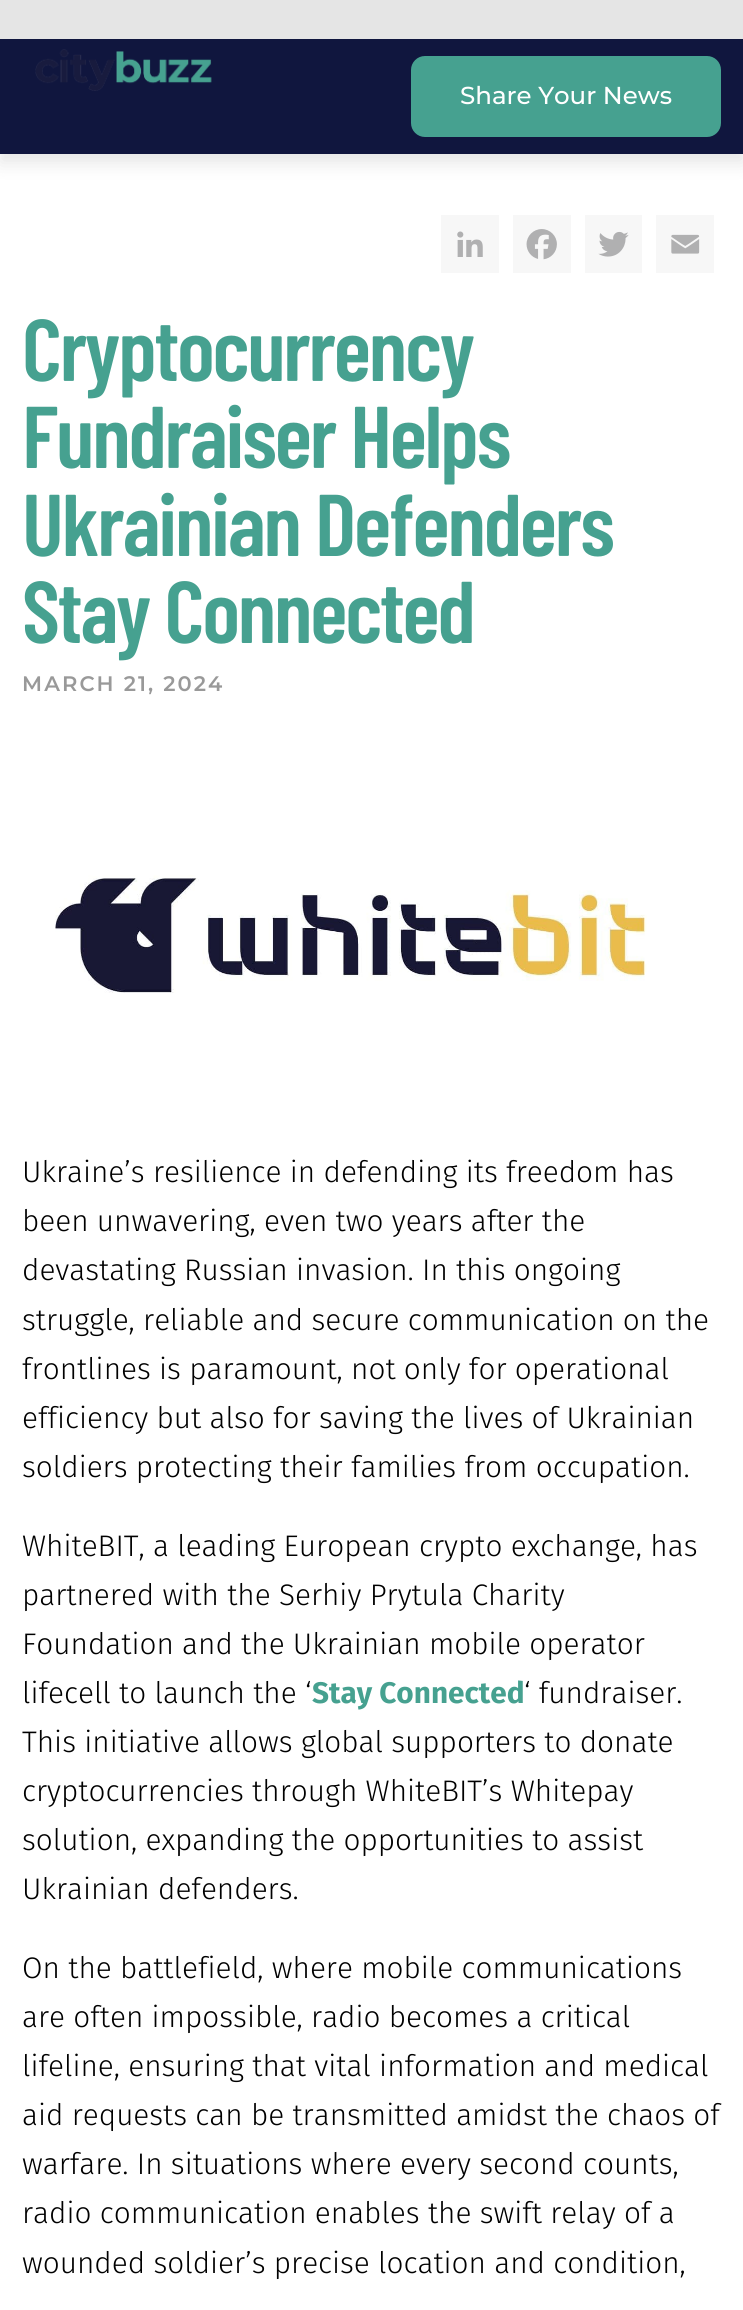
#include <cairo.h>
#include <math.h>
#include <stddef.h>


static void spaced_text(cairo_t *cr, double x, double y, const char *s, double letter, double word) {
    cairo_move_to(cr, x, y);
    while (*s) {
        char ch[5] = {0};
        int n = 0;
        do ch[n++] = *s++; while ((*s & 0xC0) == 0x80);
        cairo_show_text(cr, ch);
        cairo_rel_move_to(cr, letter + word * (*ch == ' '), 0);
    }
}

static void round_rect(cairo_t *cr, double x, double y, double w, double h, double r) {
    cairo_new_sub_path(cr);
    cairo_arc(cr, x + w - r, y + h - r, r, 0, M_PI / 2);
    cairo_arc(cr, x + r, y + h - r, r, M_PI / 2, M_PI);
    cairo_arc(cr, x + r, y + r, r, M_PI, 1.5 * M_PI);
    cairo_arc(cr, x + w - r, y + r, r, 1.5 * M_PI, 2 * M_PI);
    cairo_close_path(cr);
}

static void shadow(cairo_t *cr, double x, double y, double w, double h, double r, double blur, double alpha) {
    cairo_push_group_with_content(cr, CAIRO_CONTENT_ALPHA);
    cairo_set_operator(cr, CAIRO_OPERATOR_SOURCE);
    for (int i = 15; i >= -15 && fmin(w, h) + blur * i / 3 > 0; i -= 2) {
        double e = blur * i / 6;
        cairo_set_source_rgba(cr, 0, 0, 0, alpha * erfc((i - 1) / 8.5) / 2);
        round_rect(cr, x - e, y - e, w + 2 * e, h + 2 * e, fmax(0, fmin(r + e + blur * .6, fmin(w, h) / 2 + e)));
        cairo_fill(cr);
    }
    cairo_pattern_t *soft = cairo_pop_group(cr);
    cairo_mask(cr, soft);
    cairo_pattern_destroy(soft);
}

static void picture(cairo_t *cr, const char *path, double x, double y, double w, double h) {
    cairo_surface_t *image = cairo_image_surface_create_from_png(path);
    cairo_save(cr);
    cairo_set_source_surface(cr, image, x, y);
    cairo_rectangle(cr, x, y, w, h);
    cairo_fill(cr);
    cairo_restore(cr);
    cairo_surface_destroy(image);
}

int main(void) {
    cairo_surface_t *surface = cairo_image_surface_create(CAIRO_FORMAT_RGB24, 743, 2310);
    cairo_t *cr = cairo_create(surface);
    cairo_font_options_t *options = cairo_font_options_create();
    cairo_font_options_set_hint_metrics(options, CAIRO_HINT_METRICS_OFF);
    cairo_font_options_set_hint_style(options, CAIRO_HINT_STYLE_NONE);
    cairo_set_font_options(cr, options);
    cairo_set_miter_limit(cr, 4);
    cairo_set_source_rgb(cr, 1, 1, 1);
    cairo_paint(cr);
    cairo_set_source_rgb(cr, 0, 0, 0);
    shadow(cr, 0, 9, 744, 154, 0, 9, 0.1);
    cairo_set_source_rgb(cr, 0.898, 0.898, 0.898);
    cairo_rectangle(cr, 0, 0, 743, 39);
    cairo_fill(cr);
    cairo_set_source_rgb(cr, 0.063, 0.086, 0.243);
    cairo_rectangle(cr, 0, 39, 743, 115);
    cairo_fill(cr);
    picture(cr, "img1.png", 35, 49, 177, 42);
    cairo_set_source_rgb(cr, 0.275, 0.631, 0.565);
    round_rect(cr, 411, 56, 310, 81, 14);
    cairo_fill(cr);
    cairo_select_font_face(cr, "Montserrat Medium", CAIRO_FONT_SLANT_NORMAL, CAIRO_FONT_WEIGHT_NORMAL);
    cairo_set_font_size(cr, 24.5);
    cairo_set_source_rgb(cr, 1, 1, 1);
    cairo_move_to(cr, 460, 104);
    cairo_show_text(cr, "Share Your News");
    cairo_set_source_rgb(cr, 0.965, 0.965, 0.965);
    cairo_rectangle(cr, 441, 215, 58, 58);
    cairo_fill(cr);
    picture(cr, "img2.png", 457, 231, 26, 26);
    cairo_rectangle(cr, 513, 215, 58, 58);
    cairo_fill(cr);
    picture(cr, "img3.png", 526, 229, 31, 31);
    cairo_rectangle(cr, 585, 215, 57, 58);
    cairo_fill(cr);
    picture(cr, "img4.png", 598, 231, 31, 26);
    cairo_rectangle(cr, 656, 215, 58, 58);
    cairo_fill(cr);
    picture(cr, "img5.png", 671, 234, 29, 20);
    cairo_select_font_face(cr, "Barlow Condensed SemiBold", CAIRO_FONT_SLANT_NORMAL, CAIRO_FONT_WEIGHT_NORMAL);
    cairo_set_font_size(cr, 87.5);
    cairo_set_source_rgb(cr, 0.275, 0.631, 0.565);
    spaced_text(cr, 22, 381, "Cryptocurrency", -2.2, 0);
    spaced_text(cr, 22, 468, "Fundraiser Helps", -2.2, 0);
    spaced_text(cr, 22, 556, "Ukrainian Defenders", -2.2, 0);
    spaced_text(cr, 22, 643, "Stay Connected", -2.2, 0);
    cairo_select_font_face(cr, "Montserrat SemiBold", CAIRO_FONT_SLANT_NORMAL, CAIRO_FONT_WEIGHT_NORMAL);
    cairo_set_font_size(cr, 21);
    cairo_set_source_rgb(cr, 0.6, 0.6, 0.6);
    spaced_text(cr, 22, 691, "MARCH 21, 2024", 2.1, 0);
    picture(cr, "img6.png", 55, 875, 592, 118);
    cairo_select_font_face(cr, "Fira Sans Light", CAIRO_FONT_SLANT_NORMAL, CAIRO_FONT_WEIGHT_NORMAL);
    cairo_set_font_size(cr, 29.75);
    cairo_set_source_rgb(cr, 0, 0, 0);
    cairo_move_to(cr, 22, 1182);
    cairo_show_text(cr, "Ukraine’s resilience in defending its freedom has");
    cairo_move_to(cr, 22, 1231);
    cairo_show_text(cr, "been unwavering, even two years after the");
    cairo_move_to(cr, 22, 1280);
    cairo_show_text(cr, "devastating Russian invasion. In this ongoing");
    cairo_move_to(cr, 22, 1330);
    cairo_show_text(cr, "struggle, reliable and secure communication on the");
    cairo_move_to(cr, 22, 1379);
    cairo_show_text(cr, "frontlines is paramount, not only for operational");
    cairo_move_to(cr, 22, 1428);
    cairo_show_text(cr, "efficiency but also for saving the lives of Ukrainian");
    cairo_move_to(cr, 22, 1477);
    cairo_show_text(cr, "soldiers protecting their families from occupation.");
    cairo_move_to(cr, 22, 1556);
    cairo_show_text(cr, "WhiteBIT, a leading European crypto exchange, has");
    cairo_move_to(cr, 22, 1605);
    cairo_show_text(cr, "partnered with the Serhiy Prytula Charity");
    cairo_move_to(cr, 22, 1654);
    cairo_show_text(cr, "Foundation and the Ukrainian mobile operator");
    cairo_move_to(cr, 22, 1703);
    cairo_show_text(cr, "lifecell to launch the ‘");
    cairo_select_font_face(cr, "Fira Sans", CAIRO_FONT_SLANT_NORMAL, CAIRO_FONT_WEIGHT_BOLD);
    cairo_set_source_rgb(cr, 0.275, 0.631, 0.565);
    cairo_move_to(cr, 312, 1703);
    cairo_show_text(cr, "Stay Connected");
    cairo_select_font_face(cr, "Fira Sans Light", CAIRO_FONT_SLANT_NORMAL, CAIRO_FONT_WEIGHT_NORMAL);
    cairo_set_source_rgb(cr, 0, 0, 0);
    cairo_move_to(cr, 524, 1703);
    cairo_show_text(cr, "‘ fundraiser.");
    cairo_move_to(cr, 22, 1752);
    cairo_show_text(cr, "This initiative allows global supporters to donate");
    cairo_move_to(cr, 22, 1801);
    cairo_show_text(cr, "cryptocurrencies through WhiteBIT’s Whitepay");
    cairo_move_to(cr, 22, 1850);
    cairo_show_text(cr, "solution, expanding the opportunities to assist");
    cairo_move_to(cr, 22, 1899);
    cairo_show_text(cr, "Ukrainian defenders.");
    cairo_move_to(cr, 22, 1978);
    cairo_show_text(cr, "On the battlefield, where mobile communications");
    cairo_move_to(cr, 22, 2027);
    cairo_show_text(cr, "are often impossible, radio becomes a critical");
    cairo_move_to(cr, 22, 2076);
    cairo_show_text(cr, "lifeline, ensuring that vital information and medical");
    cairo_move_to(cr, 22, 2125);
    cairo_show_text(cr, "aid requests can be transmitted amidst the chaos of");
    cairo_move_to(cr, 22, 2174);
    cairo_show_text(cr, "warfare. In situations where every second counts,");
    cairo_move_to(cr, 22, 2223);
    cairo_show_text(cr, "radio communication enables the swift relay of a");
    cairo_move_to(cr, 22, 2273);
    cairo_show_text(cr, "wounded soldier’s precise location and condition,");
    cairo_surface_write_to_png(surface, "page.png");
    cairo_font_options_destroy(options);
    cairo_destroy(cr);
    cairo_surface_destroy(surface);
    return 0;
}
